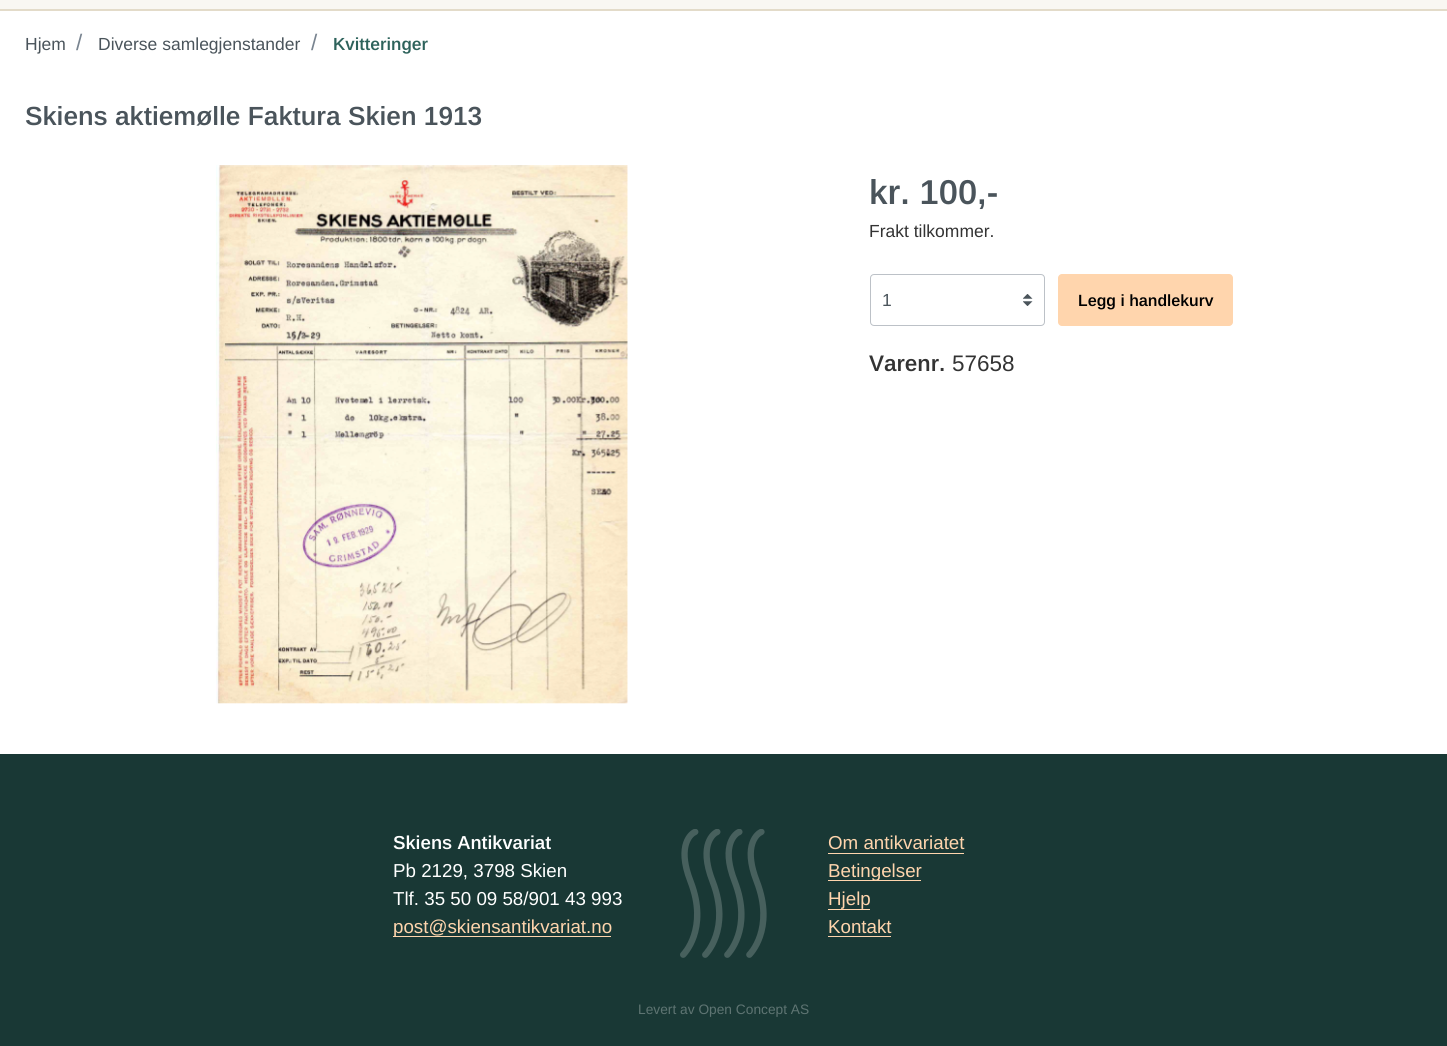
#include <cairo.h>
#include <math.h>
#include <stddef.h>


static void round_rect(cairo_t *cr, double x, double y, double w, double h, double r) {
    cairo_new_sub_path(cr);
    cairo_arc(cr, x + w - r, y + h - r, r, 0, M_PI / 2);
    cairo_arc(cr, x + r, y + h - r, r, M_PI / 2, M_PI);
    cairo_arc(cr, x + r, y + r, r, M_PI, 1.5 * M_PI);
    cairo_arc(cr, x + w - r, y + r, r, 1.5 * M_PI, 2 * M_PI);
    cairo_close_path(cr);
}

static void picture(cairo_t *cr, const char *path, double x, double y, double w, double h) {
    cairo_surface_t *image = cairo_image_surface_create_from_png(path);
    cairo_save(cr);
    cairo_set_source_surface(cr, image, x, y);
    cairo_rectangle(cr, x, y, w, h);
    cairo_fill(cr);
    cairo_restore(cr);
    cairo_surface_destroy(image);
}

int main(void) {
    cairo_surface_t *surface = cairo_image_surface_create(CAIRO_FORMAT_RGB24, 1447, 1046);
    cairo_t *cr = cairo_create(surface);
    cairo_font_options_t *options = cairo_font_options_create();
    cairo_font_options_set_hint_metrics(options, CAIRO_HINT_METRICS_OFF);
    cairo_font_options_set_hint_style(options, CAIRO_HINT_STYLE_NONE);
    cairo_set_font_options(cr, options);
    cairo_set_miter_limit(cr, 4);
    cairo_set_source_rgb(cr, 0.973, 0.965, 0.949);
    cairo_paint(cr);
    cairo_set_source_rgb(cr, 0.89, 0.859, 0.788);
    cairo_rectangle(cr, 0, 9, 1447, 2);
    cairo_fill(cr);
    cairo_set_source_rgb(cr, 1, 1, 1);
    cairo_rectangle(cr, 0, 11, 1447, 743);
    cairo_fill(cr);
    cairo_select_font_face(cr, "Arimo", CAIRO_FONT_SLANT_NORMAL, CAIRO_FONT_WEIGHT_NORMAL);
    cairo_set_font_size(cr, 17.5);
    cairo_set_source_rgb(cr, 0.29, 0.329, 0.357);
    cairo_move_to(cr, 25, 50);
    cairo_show_text(cr, "Hjem");
    cairo_set_font_size(cr, 22.5);
    cairo_set_source_rgb(cr, 0.475, 0.518, 0.565);
    cairo_move_to(cr, 76, 50);
    cairo_show_text(cr, "/");
    cairo_set_font_size(cr, 17.5);
    cairo_set_source_rgb(cr, 0.29, 0.329, 0.357);
    cairo_move_to(cr, 98, 50);
    cairo_show_text(cr, "Diverse samlegjenstander");
    cairo_set_font_size(cr, 22.5);
    cairo_set_source_rgb(cr, 0.475, 0.518, 0.565);
    cairo_move_to(cr, 311, 50);
    cairo_show_text(cr, "/");
    cairo_select_font_face(cr, "Arimo SemiBold", CAIRO_FONT_SLANT_NORMAL, CAIRO_FONT_WEIGHT_NORMAL);
    cairo_set_font_size(cr, 17.5);
    cairo_set_source_rgb(cr, 0.176, 0.384, 0.357);
    cairo_move_to(cr, 333, 50);
    cairo_show_text(cr, "Kvitteringer");
    cairo_set_font_size(cr, 26.25);
    cairo_set_source_rgb(cr, 0.29, 0.329, 0.357);
    cairo_move_to(cr, 25, 125);
    cairo_show_text(cr, "Skiens aktiemølle Faktura Skien 1913");
    picture(cr, "img1.png", 216, 165, 412, 539);
    cairo_set_font_size(cr, 34.5);
    cairo_move_to(cr, 869, 204);
    cairo_show_text(cr, "kr. 100,-");
    cairo_select_font_face(cr, "Arimo", CAIRO_FONT_SLANT_NORMAL, CAIRO_FONT_WEIGHT_NORMAL);
    cairo_set_font_size(cr, 17.5);
    cairo_set_source_rgb(cr, 0.2, 0.2, 0.2);
    cairo_move_to(cr, 869, 237);
    cairo_show_text(cr, "Frakt tilkommer.");
    picture(cr, "img2.png", 1023, 294, 10, 12);
    round_rect(cr, 870.5, 274.5, 174, 51, 3.5);
    cairo_set_source_rgb(cr, 0.737, 0.757, 0.78);
    cairo_set_line_width(cr, 1);
    cairo_stroke(cr);
    cairo_set_source_rgb(cr, 0.29, 0.329, 0.357);
    cairo_move_to(cr, 882, 306);
    cairo_show_text(cr, "1");
    cairo_set_source_rgb(cr, 1, 0.835, 0.678);
    round_rect(cr, 1058, 274, 175, 52, 4);
    cairo_fill(cr);
    cairo_select_font_face(cr, "Arimo SemiBold", CAIRO_FONT_SLANT_NORMAL, CAIRO_FONT_WEIGHT_NORMAL);
    cairo_set_font_size(cr, 16.25);
    cairo_set_source_rgb(cr, 0, 0, 0);
    cairo_move_to(cr, 1078, 306);
    cairo_show_text(cr, "Legg i handlekurv");
    cairo_set_font_size(cr, 22.5);
    cairo_set_source_rgb(cr, 0.2, 0.2, 0.2);
    cairo_move_to(cr, 869, 371);
    cairo_show_text(cr, "Varenr.");
    cairo_select_font_face(cr, "Arimo", CAIRO_FONT_SLANT_NORMAL, CAIRO_FONT_WEIGHT_NORMAL);
    cairo_move_to(cr, 952, 371);
    cairo_show_text(cr, "57658");
    cairo_set_source_rgb(cr, 0.098, 0.22, 0.208);
    cairo_rectangle(cr, 0, 754, 1447, 292);
    cairo_fill(cr);
    cairo_select_font_face(cr, "Arimo SemiBold", CAIRO_FONT_SLANT_NORMAL, CAIRO_FONT_WEIGHT_NORMAL);
    cairo_set_font_size(cr, 18.75);
    cairo_set_source_rgb(cr, 1, 1, 1);
    cairo_move_to(cr, 393, 849);
    cairo_show_text(cr, "Skiens Antikvariat");
    cairo_select_font_face(cr, "Arimo", CAIRO_FONT_SLANT_NORMAL, CAIRO_FONT_WEIGHT_NORMAL);
    cairo_move_to(cr, 393, 877);
    cairo_show_text(cr, "Pb 2129, 3798 Skien");
    cairo_move_to(cr, 393, 905);
    cairo_show_text(cr, "Tlf. 35 50 09 58/901 43 993");
    cairo_set_source_rgb(cr, 1, 0.835, 0.678);
    cairo_rectangle(cr, 393, 936, 218, 1);
    cairo_fill(cr);
    cairo_move_to(cr, 393, 933);
    cairo_show_text(cr, "post@skiensantikvariat.no");
    picture(cr, "img3.png", 680, 829, 87, 129);
    cairo_move_to(cr, 828, 849);
    cairo_show_text(cr, "Om antikvariatet");
    cairo_rectangle(cr, 828, 853, 136, 1);
    cairo_fill(cr);
    cairo_rectangle(cr, 828, 880, 93, 1);
    cairo_fill(cr);
    cairo_move_to(cr, 828, 877);
    cairo_show_text(cr, "Betingelser");
    cairo_move_to(cr, 828, 905);
    cairo_show_text(cr, "Hjelp");
    cairo_rectangle(cr, 828, 909, 42, 1);
    cairo_fill(cr);
    cairo_move_to(cr, 828, 933);
    cairo_show_text(cr, "Kontakt");
    cairo_rectangle(cr, 828, 936, 63, 1);
    cairo_fill(cr);
    cairo_set_font_size(cr, 13.75);
    cairo_set_source_rgb(cr, 0.369, 0.455, 0.447);
    cairo_move_to(cr, 638, 1014);
    cairo_show_text(cr, "Levert av Open Concept AS");
    cairo_surface_write_to_png(surface, "page.png");
    cairo_font_options_destroy(options);
    cairo_destroy(cr);
    cairo_surface_destroy(surface);
    return 0;
}
